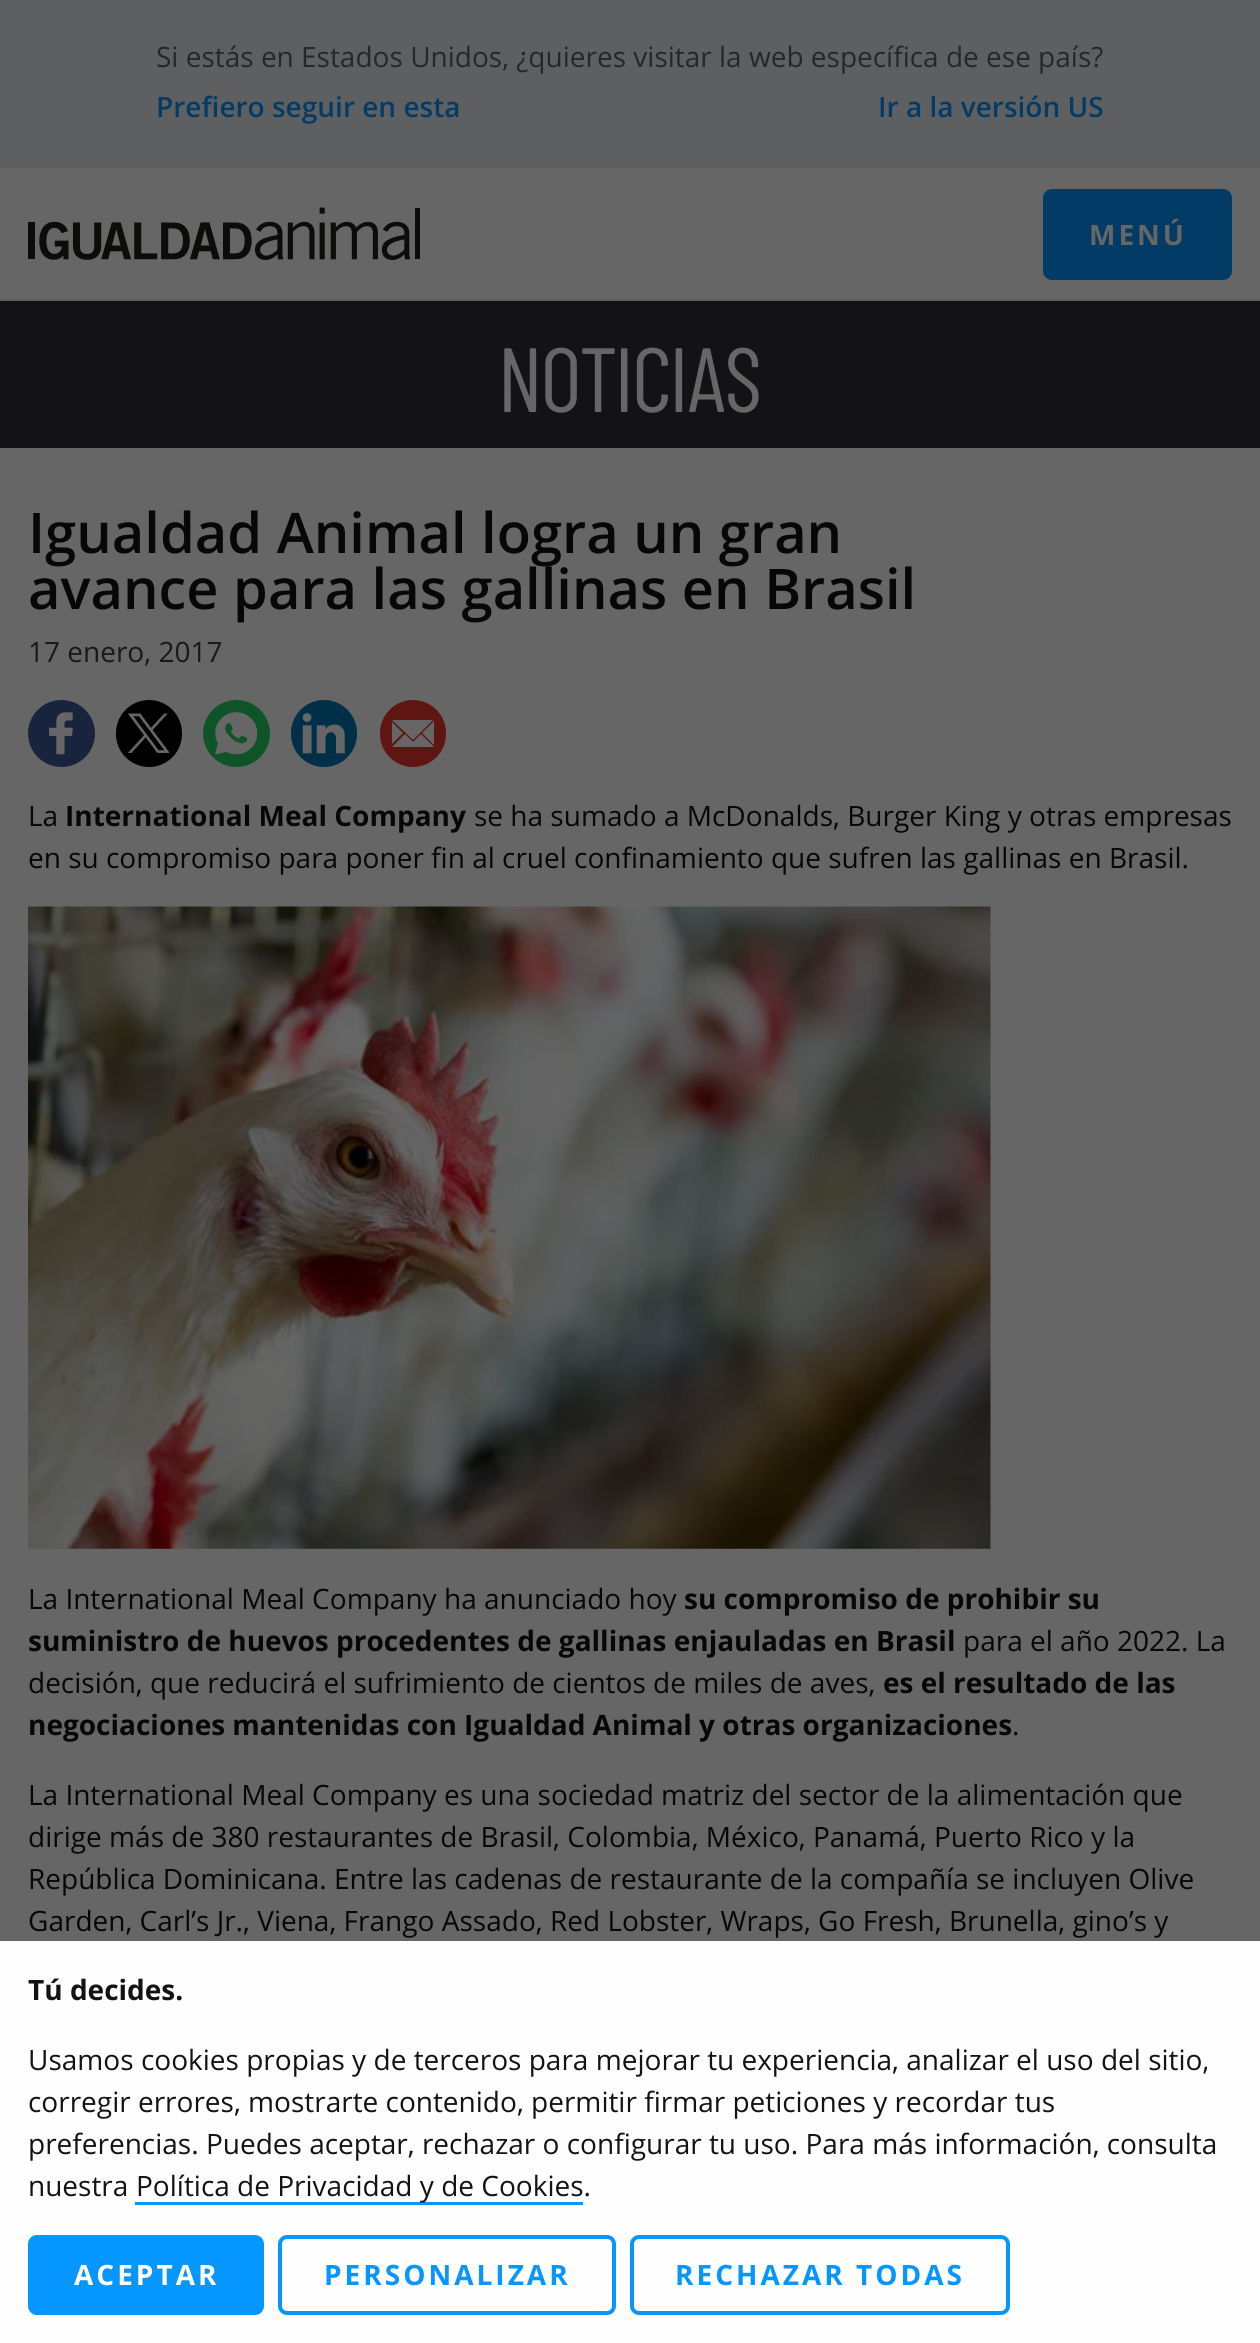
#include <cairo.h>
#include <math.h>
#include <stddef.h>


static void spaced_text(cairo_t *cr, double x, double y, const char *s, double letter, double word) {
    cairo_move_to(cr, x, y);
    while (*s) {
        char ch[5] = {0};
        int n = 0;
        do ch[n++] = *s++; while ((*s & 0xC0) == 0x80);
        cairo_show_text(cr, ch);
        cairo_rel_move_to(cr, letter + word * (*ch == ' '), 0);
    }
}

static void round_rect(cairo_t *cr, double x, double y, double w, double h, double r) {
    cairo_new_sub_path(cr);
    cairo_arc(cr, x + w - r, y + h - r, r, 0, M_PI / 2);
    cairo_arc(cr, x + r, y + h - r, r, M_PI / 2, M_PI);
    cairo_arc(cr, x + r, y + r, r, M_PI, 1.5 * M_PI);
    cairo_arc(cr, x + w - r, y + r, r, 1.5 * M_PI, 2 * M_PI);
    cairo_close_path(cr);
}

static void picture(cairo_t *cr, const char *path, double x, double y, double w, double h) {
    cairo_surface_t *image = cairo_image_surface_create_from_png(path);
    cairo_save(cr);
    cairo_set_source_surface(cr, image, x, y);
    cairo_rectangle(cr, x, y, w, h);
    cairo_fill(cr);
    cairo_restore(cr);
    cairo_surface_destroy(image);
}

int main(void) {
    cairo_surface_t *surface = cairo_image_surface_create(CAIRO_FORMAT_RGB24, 1260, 2343);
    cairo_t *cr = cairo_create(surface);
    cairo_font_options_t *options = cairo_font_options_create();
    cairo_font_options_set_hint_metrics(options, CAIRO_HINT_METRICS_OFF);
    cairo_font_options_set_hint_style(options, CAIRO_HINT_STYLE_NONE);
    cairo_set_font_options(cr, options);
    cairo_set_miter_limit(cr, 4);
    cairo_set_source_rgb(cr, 0.4, 0.4, 0.4);
    cairo_paint(cr);
    cairo_set_source_rgb(cr, 0.369, 0.373, 0.38);
    cairo_rectangle(cr, 0, 0, 1260, 168);
    cairo_fill(cr);
    cairo_select_font_face(cr, "Open Sans", CAIRO_FONT_SLANT_NORMAL, CAIRO_FONT_WEIGHT_NORMAL);
    cairo_set_font_size(cr, 28);
    cairo_set_source_rgb(cr, 0.137, 0.153, 0.188);
    cairo_move_to(cr, 156, 67);
    cairo_show_text(cr, "Si estás en Estados Unidos, ¿quieres visitar la web específica de ese país?");
    cairo_set_source_rgb(cr, 0.369, 0.369, 0.369);
    cairo_rectangle(cr, 156, 130, 304, 3);
    cairo_fill(cr);
    cairo_select_font_face(cr, "Open Sans SemiBold", CAIRO_FONT_SLANT_NORMAL, CAIRO_FONT_WEIGHT_NORMAL);
    cairo_set_source_rgb(cr, 0.008, 0.235, 0.4);
    cairo_move_to(cr, 156, 117);
    cairo_show_text(cr, "Prefiero seguir en esta");
    cairo_set_source_rgb(cr, 0.369, 0.369, 0.369);
    cairo_rectangle(cr, 879, 130, 225, 3);
    cairo_fill(cr);
    cairo_set_source_rgb(cr, 0.008, 0.235, 0.4);
    cairo_move_to(cr, 878, 117);
    cairo_show_text(cr, "Ir a la versión US");
    cairo_set_source_rgb(cr, 0.369, 0.369, 0.369);
    cairo_rectangle(cr, 0, 299, 1260, 2);
    cairo_fill(cr);
    picture(cr, "img1.png", 28, 207, 392, 53);
    cairo_set_source_rgb(cr, 0.008, 0.235, 0.4);
    round_rect(cr, 1045, 191, 185, 87, 7);
    cairo_fill_preserve(cr);
    cairo_set_line_width(cr, 4);
    cairo_stroke(cr);
    cairo_select_font_face(cr, "Open Sans", CAIRO_FONT_SLANT_NORMAL, CAIRO_FONT_WEIGHT_BOLD);
    cairo_set_source_rgb(cr, 0.4, 0.4, 0.4);
    spaced_text(cr, 1089, 245, "MENÚ", 3, 0);
    cairo_set_source_rgb(cr, 0.075, 0.078, 0.086);
    cairo_rectangle(cr, 0, 301, 1260, 147);
    cairo_fill(cr);
    cairo_select_font_face(cr, "Barlow Condensed", CAIRO_FONT_SLANT_NORMAL, CAIRO_FONT_WEIGHT_NORMAL);
    cairo_set_font_size(cr, 91);
    cairo_set_source_rgb(cr, 0.4, 0.4, 0.4);
    cairo_move_to(cr, 499, 412);
    cairo_show_text(cr, "NOTICIAS");
    cairo_select_font_face(cr, "Open Sans SemiBold", CAIRO_FONT_SLANT_NORMAL, CAIRO_FONT_WEIGHT_NORMAL);
    cairo_set_font_size(cr, 56);
    cairo_set_source_rgb(cr, 0.031, 0.031, 0.031);
    cairo_move_to(cr, 28, 553);
    cairo_show_text(cr, "Igualdad Animal logra un gran");
    cairo_move_to(cr, 28, 609);
    cairo_show_text(cr, "avance para las gallinas en Brasil");
    cairo_select_font_face(cr, "Open Sans", CAIRO_FONT_SLANT_NORMAL, CAIRO_FONT_WEIGHT_NORMAL);
    cairo_set_font_size(cr, 28);
    cairo_set_source_rgb(cr, 0.098, 0.098, 0.098);
    cairo_move_to(cr, 28, 662);
    cairo_show_text(cr, "17 enero, 2017");
    cairo_set_source_rgb(cr, 0.094, 0.141, 0.239);
    cairo_new_path(cr);
    cairo_arc(cr, 61.5, 733.5, 31.5, 0, 2 * M_PI);
    cairo_fill_preserve(cr);
    cairo_stroke(cr);
    picture(cr, "img2.png", 49, 712, 24, 43);
    cairo_set_source_rgb(cr, 0, 0, 0);
    round_rect(cr, 118, 702, 62, 63, 31);
    cairo_fill_preserve(cr);
    cairo_stroke(cr);
    picture(cr, "img3.png", 127, 713, 43, 40);
    cairo_set_source_rgb(cr, 0.059, 0.329, 0.161);
    cairo_arc(cr, 236.5, 733.5, 31.5, 0, 2 * M_PI);
    cairo_fill_preserve(cr);
    cairo_stroke(cr);
    picture(cr, "img4.png", 215, 712, 43, 43);
    cairo_set_source_rgb(cr, 0, 0.188, 0.282);
    round_rect(cr, 293, 702, 62, 63, 31);
    cairo_fill_preserve(cr);
    cairo_stroke(cr);
    picture(cr, "img5.png", 302, 713, 43, 41);
    cairo_set_source_rgb(cr, 0.373, 0.086, 0.078);
    round_rect(cr, 382, 702, 62, 63, 31);
    cairo_fill_preserve(cr);
    cairo_stroke(cr);
    cairo_set_source_rgb(cr, 0.4, 0.4, 0.4);
    cairo_new_path(cr);
    cairo_move_to(cr, 413, 742);
    cairo_line_to(cr, 421, 734);
    cairo_line_to(cr, 434, 747);
    cairo_line_to(cr, 392, 747);
    cairo_line_to(cr, 405, 734);
    cairo_close_path(cr);
    cairo_move_to(cr, 392, 720);
    cairo_line_to(cr, 433, 720);
    cairo_line_to(cr, 413, 740);
    cairo_close_path(cr);
    cairo_move_to(cr, 392, 744);
    cairo_line_to(cr, 392, 722);
    cairo_line_to(cr, 403, 733);
    cairo_close_path(cr);
    cairo_move_to(cr, 434, 745);
    cairo_line_to(cr, 422, 733);
    cairo_line_to(cr, 434, 721);
    cairo_close_path(cr);
    cairo_fill(cr);
    cairo_set_source_rgb(cr, 0.031, 0.031, 0.031);
    cairo_move_to(cr, 28, 826);
    cairo_show_text(cr, "La");
    cairo_select_font_face(cr, "Open Sans", CAIRO_FONT_SLANT_NORMAL, CAIRO_FONT_WEIGHT_BOLD);
    cairo_move_to(cr, 65, 826);
    cairo_show_text(cr, "International Meal Company");
    cairo_select_font_face(cr, "Open Sans", CAIRO_FONT_SLANT_NORMAL, CAIRO_FONT_WEIGHT_NORMAL);
    cairo_move_to(cr, 474, 826);
    cairo_show_text(cr, "se ha sumado a McDonalds, Burger King y otras empresas");
    cairo_move_to(cr, 28, 868);
    cairo_show_text(cr, "en su compromiso para poner fin al cruel confinamiento que sufren las gallinas en Brasil.");
    picture(cr, "img6.png", 28, 906, 963, 643);
    cairo_move_to(cr, 28, 1609);
    cairo_show_text(cr, "La International Meal Company ha anunciado hoy");
    cairo_select_font_face(cr, "Open Sans", CAIRO_FONT_SLANT_NORMAL, CAIRO_FONT_WEIGHT_BOLD);
    cairo_move_to(cr, 684, 1609);
    cairo_show_text(cr, "su compromiso de prohibir su");
    cairo_move_to(cr, 28, 1651);
    cairo_show_text(cr, "suministro de huevos procedentes de gallinas enjauladas en Brasil");
    cairo_select_font_face(cr, "Open Sans", CAIRO_FONT_SLANT_NORMAL, CAIRO_FONT_WEIGHT_NORMAL);
    cairo_move_to(cr, 963, 1651);
    cairo_show_text(cr, "para el año 2022. La");
    cairo_move_to(cr, 28, 1693);
    cairo_show_text(cr, "decisión, que reducirá el sufrimiento de cientos de miles de aves,");
    cairo_select_font_face(cr, "Open Sans", CAIRO_FONT_SLANT_NORMAL, CAIRO_FONT_WEIGHT_BOLD);
    cairo_move_to(cr, 883, 1693);
    cairo_show_text(cr, "es el resultado de las");
    cairo_move_to(cr, 28, 1735);
    cairo_show_text(cr, "negociaciones mantenidas con Igualdad Animal y otras organizaciones");
    cairo_select_font_face(cr, "Open Sans", CAIRO_FONT_SLANT_NORMAL, CAIRO_FONT_WEIGHT_NORMAL);
    cairo_move_to(cr, 1012, 1735);
    cairo_show_text(cr, ".");
    cairo_move_to(cr, 28, 1805);
    cairo_show_text(cr, "La International Meal Company es una sociedad matriz del sector de la alimentación que");
    cairo_move_to(cr, 28, 1847);
    cairo_show_text(cr, "dirige más de 380 restaurantes de Brasil, Colombia, México, Panamá, Puerto Rico y la");
    cairo_move_to(cr, 28, 1889);
    cairo_show_text(cr, "República Dominicana. Entre las cadenas de restaurante de la compañía se incluyen Olive");
    cairo_move_to(cr, 28, 1931);
    cairo_show_text(cr, "Garden, Carl’s Jr., Viena, Frango Assado, Red Lobster, Wraps, Go Fresh, Brunella, gino’s y");
    cairo_set_source_rgb(cr, 0.996, 0.996, 0.996);
    cairo_rectangle(cr, 0, 1941, 1260, 402);
    cairo_fill(cr);
    cairo_select_font_face(cr, "Open Sans", CAIRO_FONT_SLANT_NORMAL, CAIRO_FONT_WEIGHT_BOLD);
    cairo_set_source_rgb(cr, 0.075, 0.075, 0.075);
    cairo_move_to(cr, 28, 2000);
    cairo_show_text(cr, "Tú decides.");
    cairo_select_font_face(cr, "Open Sans", CAIRO_FONT_SLANT_NORMAL, CAIRO_FONT_WEIGHT_NORMAL);
    cairo_move_to(cr, 28, 2070);
    cairo_show_text(cr, "Usamos cookies propias y de terceros para mejorar tu experiencia, analizar el uso del sitio,");
    cairo_move_to(cr, 28, 2112);
    cairo_show_text(cr, "corregir errores, mostrarte contenido, permitir firmar peticiones y recordar tus");
    cairo_move_to(cr, 28, 2154);
    cairo_show_text(cr, "preferencias. Puedes aceptar, rechazar o configurar tu uso. Para más información, consulta");
    cairo_move_to(cr, 28, 2196);
    cairo_show_text(cr, "nuestra");
    cairo_set_source_rgb(cr, 0.02, 0.592, 1);
    cairo_rectangle(cr, 135, 2202, 448, 3);
    cairo_fill(cr);
    cairo_set_source_rgb(cr, 0.075, 0.075, 0.075);
    cairo_move_to(cr, 136, 2196);
    cairo_show_text(cr, "Política de Privacidad y de Cookies.");
    cairo_set_source_rgb(cr, 0.02, 0.592, 1);
    round_rect(cr, 30, 2237, 232, 76, 7);
    cairo_fill_preserve(cr);
    cairo_stroke(cr);
    cairo_select_font_face(cr, "Open Sans", CAIRO_FONT_SLANT_NORMAL, CAIRO_FONT_WEIGHT_BOLD);
    cairo_set_source_rgb(cr, 1, 1, 1);
    spaced_text(cr, 74, 2285, "ACEPTAR", 3, 0);
    round_rect(cr, 280, 2237, 334, 76, 7);
    cairo_set_source_rgb(cr, 0.02, 0.592, 1);
    cairo_stroke(cr);
    spaced_text(cr, 324, 2285, "PERSONALIZAR", 3, 0);
    round_rect(cr, 632, 2237, 376, 76, 7);
    cairo_stroke(cr);
    spaced_text(cr, 675, 2285, "RECHAZAR TODAS", 3, 0);
    cairo_surface_write_to_png(surface, "page.png");
    cairo_font_options_destroy(options);
    cairo_destroy(cr);
    cairo_surface_destroy(surface);
    return 0;
}
